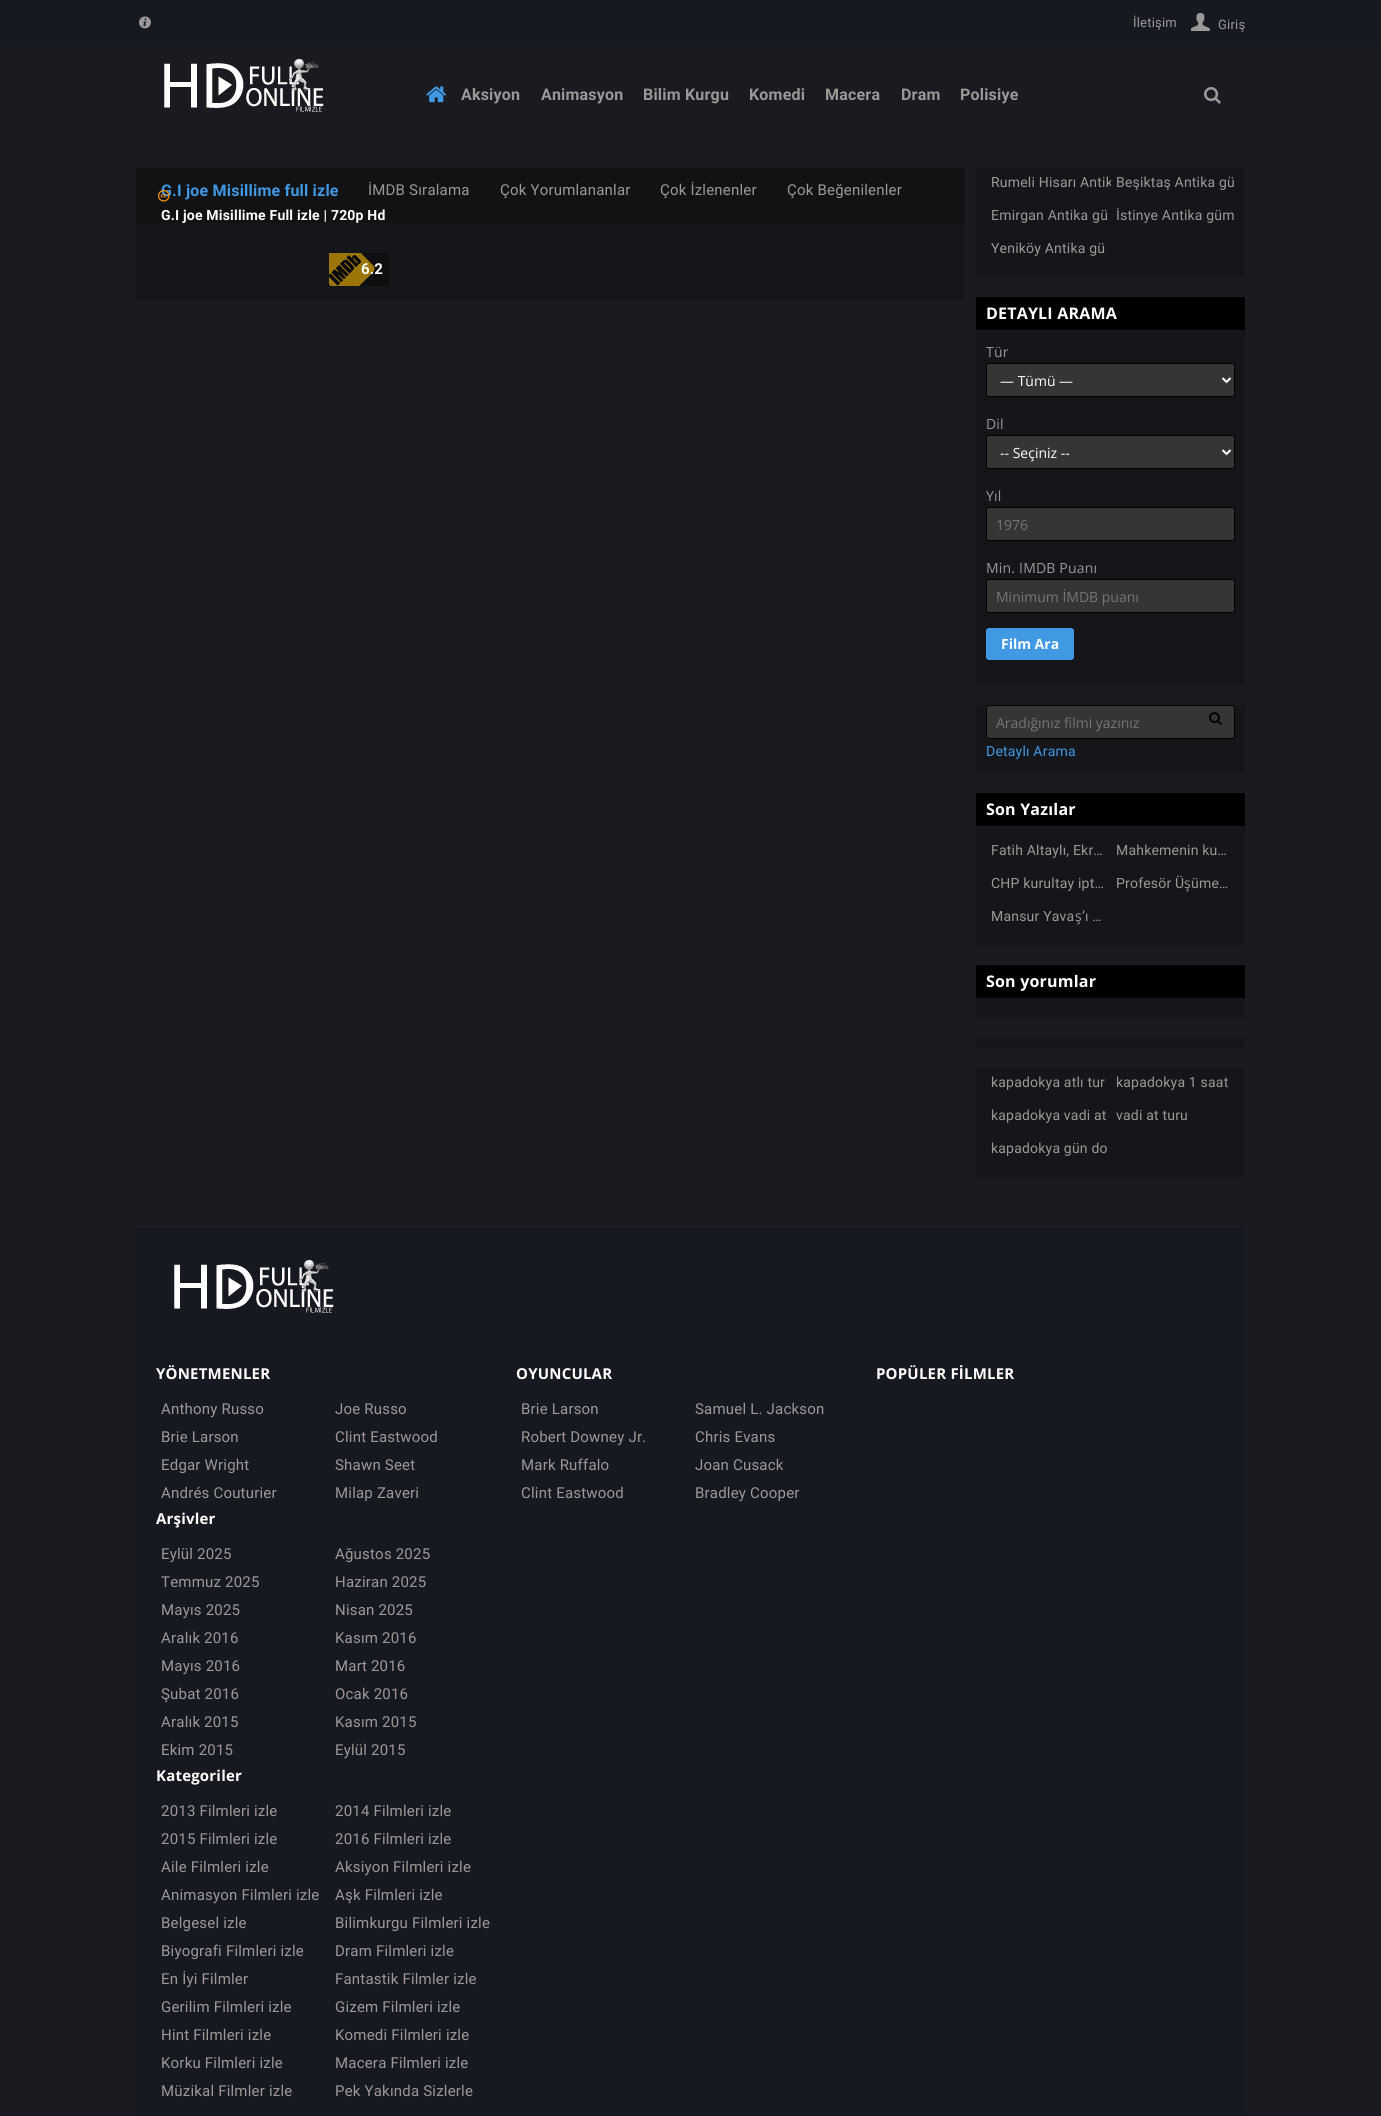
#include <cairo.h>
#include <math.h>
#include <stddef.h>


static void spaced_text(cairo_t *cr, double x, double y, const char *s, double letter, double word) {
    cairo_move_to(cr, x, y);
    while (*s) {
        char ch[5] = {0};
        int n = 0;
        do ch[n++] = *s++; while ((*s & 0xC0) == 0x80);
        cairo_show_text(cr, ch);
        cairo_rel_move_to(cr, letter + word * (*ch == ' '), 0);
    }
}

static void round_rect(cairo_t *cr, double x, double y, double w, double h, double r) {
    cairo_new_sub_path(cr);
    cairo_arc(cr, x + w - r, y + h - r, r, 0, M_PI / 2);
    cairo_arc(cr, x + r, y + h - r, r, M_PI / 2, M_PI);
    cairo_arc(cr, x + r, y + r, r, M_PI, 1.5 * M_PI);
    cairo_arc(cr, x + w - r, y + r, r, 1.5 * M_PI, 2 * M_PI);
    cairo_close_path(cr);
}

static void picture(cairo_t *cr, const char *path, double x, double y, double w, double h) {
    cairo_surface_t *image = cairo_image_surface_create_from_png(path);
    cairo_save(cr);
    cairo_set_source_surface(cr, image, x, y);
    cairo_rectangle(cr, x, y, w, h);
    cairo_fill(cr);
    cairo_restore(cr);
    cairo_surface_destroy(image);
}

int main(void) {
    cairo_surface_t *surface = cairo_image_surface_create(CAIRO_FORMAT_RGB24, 1381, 2116);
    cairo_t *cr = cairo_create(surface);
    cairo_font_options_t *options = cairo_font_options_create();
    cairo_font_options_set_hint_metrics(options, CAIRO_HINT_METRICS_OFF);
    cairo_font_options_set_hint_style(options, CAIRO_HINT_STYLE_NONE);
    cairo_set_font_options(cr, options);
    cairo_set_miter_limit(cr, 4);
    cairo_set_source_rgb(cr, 0.102, 0.106, 0.125);
    cairo_paint(cr);
    cairo_set_source_rgb(cr, 0.09, 0.098, 0.125);
    cairo_rectangle(cr, 0, 0, 1381, 47);
    cairo_fill(cr);
    picture(cr, "img1.png", 139, 16, 12, 13);
    cairo_select_font_face(cr, "Roboto", CAIRO_FONT_SLANT_NORMAL, CAIRO_FONT_WEIGHT_NORMAL);
    cairo_set_font_size(cr, 13);
    cairo_set_source_rgb(cr, 0.6, 0.6, 0.6);
    spaced_text(cr, 1133, 27, "İletişim", 0.2, 0);
    picture(cr, "img2.png", 1191, 13, 19, 18);
    spaced_text(cr, 1218, 29, "Giriş", 0.2, 0);
    picture(cr, "img3.png", 164, 59, 160, 53);
    picture(cr, "img4.png", 426, 86, 21, 17);
    cairo_select_font_face(cr, "Roboto", CAIRO_FONT_SLANT_NORMAL, CAIRO_FONT_WEIGHT_BOLD);
    cairo_set_font_size(cr, 16);
    spaced_text(cr, 461, 100, "Aksiyon", 0.2, 0);
    spaced_text(cr, 541, 100, "Animasyon", 0.2, 0);
    spaced_text(cr, 643, 100, "Bilim Kurgu", 0.2, 0);
    spaced_text(cr, 749, 100, "Komedi", 0.2, 0);
    spaced_text(cr, 825, 100, "Macera", 0.2, 0);
    spaced_text(cr, 901, 100, "Dram", 0.2, 0);
    spaced_text(cr, 960, 100, "Polisiye", 0.2, 0);
    picture(cr, "img5.png", 1204, 87, 17, 17);
    cairo_set_source_rgb(cr, 0.082, 0.086, 0.102);
    cairo_rectangle(cr, 136, 223, 829, 77);
    cairo_fill(cr);
    cairo_set_source_rgb(cr, 0.067, 0.071, 0.082);
    cairo_rectangle(cr, 136, 168, 829, 55);
    cairo_fill(cr);
    cairo_set_source_rgb(cr, 0.259, 0.6, 0.89);
    spaced_text(cr, 161, 196, "G.I joe Misillime full izle", 0.2, 0);
    cairo_select_font_face(cr, "Roboto", CAIRO_FONT_SLANT_NORMAL, CAIRO_FONT_WEIGHT_NORMAL);
    cairo_set_font_size(cr, 15);
    cairo_set_source_rgb(cr, 0.6, 0.6, 0.6);
    spaced_text(cr, 368, 195, "İMDB Sıralama", 0.2, 0);
    spaced_text(cr, 500, 195, "Çok Yorumlananlar", 0.2, 0);
    spaced_text(cr, 660, 195, "Çok İzlenenler", 0.2, 0);
    spaced_text(cr, 787, 195, "Çok Beğenilenler", 0.2, 0);
    picture(cr, "img6.png", 158, 190, 12, 12);
    cairo_select_font_face(cr, "Roboto", CAIRO_FONT_SLANT_NORMAL, CAIRO_FONT_WEIGHT_BOLD);
    cairo_set_font_size(cr, 14);
    cairo_set_source_rgb(cr, 1, 1, 1);
    spaced_text(cr, 161, 220, "G.I joe Misillime Full izle | 720p Hd", 0.2, 0);
    cairo_set_source_rgb(cr, 0.059, 0.059, 0.071);
    cairo_rectangle(cr, 329, 253, 60, 33);
    cairo_fill(cr);
    cairo_save(cr);
    cairo_rectangle(cr, 329, 253, 60, 33);
    cairo_clip(cr);
    cairo_set_source_rgb(cr, 0.024, 0.024, 0.027);
    cairo_new_path(cr);
    cairo_move_to(cr, 330, 254);
    cairo_curve_to(cr, 350, 233, 382, 264, 361, 285);
    cairo_curve_to(cr, 340, 306, 309, 274, 330, 254);
    cairo_close_path(cr);
    cairo_fill(cr);
    cairo_restore(cr);
    picture(cr, "img7.png", 329, 253, 46, 33);
    cairo_set_font_size(cr, 15);
    cairo_set_source_rgb(cr, 1, 1, 1);
    spaced_text(cr, 361, 274, "6.2", 0.2, 0);
    cairo_set_source_rgb(cr, 0.082, 0.086, 0.102);
    cairo_rectangle(cr, 976, 168, 269, 109);
    cairo_fill(cr);
    cairo_save(cr);
    cairo_rectangle(cr, 986, 168, 125, 28);
    cairo_clip(cr);
    cairo_select_font_face(cr, "Roboto", CAIRO_FONT_SLANT_NORMAL, CAIRO_FONT_WEIGHT_NORMAL);
    cairo_set_font_size(cr, 14);
    cairo_set_source_rgb(cr, 0.6, 0.6, 0.6);
    spaced_text(cr, 991, 187, "Rumeli Hisarı Antik", 0.2, 0);
    cairo_restore(cr);
    cairo_select_font_face(cr, "Roboto", CAIRO_FONT_SLANT_NORMAL, CAIRO_FONT_WEIGHT_NORMAL);
    cairo_set_font_size(cr, 14);
    cairo_set_source_rgb(cr, 0.6, 0.6, 0.6);
    spaced_text(cr, 1116, 187, "Beşiktaş Antika gü", 0.2, 0);
    spaced_text(cr, 991, 220, "Emirgan Antika gü", 0.2, 0);
    spaced_text(cr, 1116, 220, "İstinye Antika güm", 0.2, 0);
    spaced_text(cr, 991, 253, "Yeniköy Antika gü", 0.2, 0);
    cairo_set_source_rgb(cr, 0.082, 0.086, 0.102);
    cairo_rectangle(cr, 976, 330, 269, 355);
    cairo_fill(cr);
    cairo_set_source_rgb(cr, 0, 0, 0);
    cairo_rectangle(cr, 976, 297, 269, 33);
    cairo_fill(cr);
    cairo_select_font_face(cr, "Open Sans", CAIRO_FONT_SLANT_NORMAL, CAIRO_FONT_WEIGHT_BOLD);
    cairo_set_font_size(cr, 16);
    cairo_set_source_rgb(cr, 1, 1, 1);
    spaced_text(cr, 986, 319, "DETAYLI ARAMA", 0.2, 0);
    cairo_select_font_face(cr, "Open Sans", CAIRO_FONT_SLANT_NORMAL, CAIRO_FONT_WEIGHT_NORMAL);
    cairo_set_font_size(cr, 14);
    cairo_set_source_rgb(cr, 0.6, 0.6, 0.6);
    spaced_text(cr, 986, 357, "Tür", 0.2, 0);
    cairo_set_source_rgb(cr, 0.208, 0.208, 0.208);
    round_rect(cr, 986.5, 363.5, 248, 33, 2.5);
    cairo_fill_preserve(cr);
    cairo_set_source_rgb(cr, 0, 0, 0);
    cairo_set_line_width(cr, 1);
    cairo_stroke(cr);
    cairo_new_path(cr);
    cairo_move_to(cr, 1222.5, 378);
    cairo_line_to(cr, 1226.5, 382);
    cairo_line_to(cr, 1230.5, 378);
    cairo_set_source_rgb(cr, 1, 1, 1);
    cairo_set_line_width(cr, 2);
    cairo_stroke(cr);
    cairo_move_to(cr, 1000, 386);
    cairo_show_text(cr, "— Tümü —");
    cairo_set_source_rgb(cr, 0.6, 0.6, 0.6);
    spaced_text(cr, 986, 429, "Dil", 0.2, 0);
    cairo_set_source_rgb(cr, 0.208, 0.208, 0.208);
    round_rect(cr, 986.5, 435.5, 248, 33, 2.5);
    cairo_fill_preserve(cr);
    cairo_set_source_rgb(cr, 0, 0, 0);
    cairo_set_line_width(cr, 1);
    cairo_stroke(cr);
    cairo_new_path(cr);
    cairo_move_to(cr, 1222.5, 450);
    cairo_line_to(cr, 1226.5, 454);
    cairo_line_to(cr, 1230.5, 450);
    cairo_set_source_rgb(cr, 1, 1, 1);
    cairo_set_line_width(cr, 2);
    cairo_stroke(cr);
    cairo_move_to(cr, 1000, 458);
    cairo_show_text(cr, "-- Seçiniz --");
    cairo_set_source_rgb(cr, 0.6, 0.6, 0.6);
    spaced_text(cr, 986, 501, "Yıl", 0.2, 0);
    cairo_set_source_rgb(cr, 0.208, 0.208, 0.208);
    round_rect(cr, 986.5, 507.5, 248, 33, 2.5);
    cairo_fill_preserve(cr);
    cairo_set_source_rgb(cr, 0, 0, 0);
    cairo_set_line_width(cr, 1);
    cairo_stroke(cr);
    cairo_set_source_rgb(cr, 0.459, 0.459, 0.459);
    cairo_move_to(cr, 996, 530);
    cairo_show_text(cr, "1976");
    cairo_set_source_rgb(cr, 0.6, 0.6, 0.6);
    spaced_text(cr, 986, 573, "Min. IMDB Puanı", 0.2, 0);
    cairo_set_source_rgb(cr, 0.208, 0.208, 0.208);
    round_rect(cr, 986.5, 579.5, 248, 33, 2.5);
    cairo_fill_preserve(cr);
    cairo_set_source_rgb(cr, 0, 0, 0);
    cairo_stroke(cr);
    cairo_set_source_rgb(cr, 0.459, 0.459, 0.459);
    cairo_move_to(cr, 996, 602);
    cairo_show_text(cr, "Minimum İMDB puanı");
    cairo_set_source_rgb(cr, 0.259, 0.6, 0.89);
    round_rect(cr, 986, 628, 88, 32, 3);
    cairo_fill(cr);
    cairo_select_font_face(cr, "Open Sans", CAIRO_FONT_SLANT_NORMAL, CAIRO_FONT_WEIGHT_BOLD);
    cairo_set_source_rgb(cr, 1, 1, 1);
    cairo_move_to(cr, 1001, 649);
    cairo_show_text(cr, "Film Ara");
    cairo_set_source_rgb(cr, 0.082, 0.086, 0.102);
    cairo_rectangle(cr, 976, 705, 269, 68);
    cairo_fill(cr);
    cairo_set_source_rgb(cr, 0.208, 0.208, 0.208);
    round_rect(cr, 986.5, 705.5, 248, 33, 2.5);
    cairo_fill_preserve(cr);
    cairo_set_source_rgb(cr, 0, 0, 0);
    cairo_stroke(cr);
    cairo_select_font_face(cr, "Open Sans", CAIRO_FONT_SLANT_NORMAL, CAIRO_FONT_WEIGHT_NORMAL);
    cairo_set_source_rgb(cr, 0.459, 0.459, 0.459);
    cairo_move_to(cr, 996, 728);
    cairo_show_text(cr, "Aradığınız filmi yazınız");
    picture(cr, "img8.png", 1209, 712, 13, 13);
    cairo_select_font_face(cr, "Roboto", CAIRO_FONT_SLANT_NORMAL, CAIRO_FONT_WEIGHT_NORMAL);
    cairo_set_source_rgb(cr, 0.259, 0.6, 0.89);
    spaced_text(cr, 986, 756, "Detaylı Arama", 0.2, 0);
    cairo_set_source_rgb(cr, 0.082, 0.086, 0.102);
    cairo_rectangle(cr, 976, 826, 269, 119);
    cairo_fill(cr);
    cairo_set_source_rgb(cr, 0, 0, 0);
    cairo_rectangle(cr, 976, 793, 269, 33);
    cairo_fill(cr);
    cairo_select_font_face(cr, "Open Sans", CAIRO_FONT_SLANT_NORMAL, CAIRO_FONT_WEIGHT_BOLD);
    cairo_set_font_size(cr, 16);
    cairo_set_source_rgb(cr, 1, 1, 1);
    spaced_text(cr, 986, 815, "Son Yazılar", 0.2, 0);
    cairo_select_font_face(cr, "Roboto", CAIRO_FONT_SLANT_NORMAL, CAIRO_FONT_WEIGHT_NORMAL);
    cairo_set_font_size(cr, 14);
    cairo_set_source_rgb(cr, 0.6, 0.6, 0.6);
    spaced_text(cr, 991, 855, "Fatih Altaylı, Ekr…", 0.2, 0);
    spaced_text(cr, 1116, 855, "Mahkemenin ku…", 0.2, 0);
    spaced_text(cr, 991, 888, "CHP kurultay ipt…", 0.2, 0);
    spaced_text(cr, 1116, 888, "Profesör Ü", 0.2, 0);
    cairo_select_font_face(cr, "Open Sans", CAIRO_FONT_SLANT_NORMAL, CAIRO_FONT_WEIGHT_NORMAL);
    spaced_text(cr, 1184, 888, "ş", 0.2, 0);
    cairo_select_font_face(cr, "Roboto", CAIRO_FONT_SLANT_NORMAL, CAIRO_FONT_WEIGHT_NORMAL);
    spaced_text(cr, 1191, 888, "üme…", 0.2, 0);
    spaced_text(cr, 991, 921, "Mansur Yava", 0.2, 0);
    cairo_select_font_face(cr, "Open Sans", CAIRO_FONT_SLANT_NORMAL, CAIRO_FONT_WEIGHT_NORMAL);
    spaced_text(cr, 1075, 921, "ş", 0.2, 0);
    cairo_select_font_face(cr, "Roboto", CAIRO_FONT_SLANT_NORMAL, CAIRO_FONT_WEIGHT_NORMAL);
    spaced_text(cr, 1082, 921, "’ı …", 0.2, 0);
    cairo_set_source_rgb(cr, 0.082, 0.086, 0.102);
    cairo_rectangle(cr, 976, 998, 269, 20);
    cairo_fill(cr);
    cairo_set_source_rgb(cr, 0, 0, 0);
    cairo_rectangle(cr, 976, 965, 269, 33);
    cairo_fill(cr);
    cairo_select_font_face(cr, "Open Sans", CAIRO_FONT_SLANT_NORMAL, CAIRO_FONT_WEIGHT_BOLD);
    cairo_set_font_size(cr, 16);
    cairo_set_source_rgb(cr, 1, 1, 1);
    spaced_text(cr, 986, 987, "Son yorumlar", 0.2, 0);
    cairo_set_source_rgb(cr, 0.082, 0.086, 0.102);
    cairo_rectangle(cr, 976, 1038, 269, 10);
    cairo_fill(cr);
    cairo_rectangle(cr, 976, 1068, 269, 109);
    cairo_fill(cr);
    cairo_select_font_face(cr, "Roboto", CAIRO_FONT_SLANT_NORMAL, CAIRO_FONT_WEIGHT_NORMAL);
    cairo_set_font_size(cr, 14);
    cairo_set_source_rgb(cr, 0.6, 0.6, 0.6);
    spaced_text(cr, 991, 1087, "kapadokya atlı tur", 0.2, 0);
    spaced_text(cr, 1116, 1087, "kapadokya 1 saat", 0.2, 0);
    spaced_text(cr, 991, 1120, "kapadokya vadi at", 0.2, 0);
    spaced_text(cr, 1116, 1120, "vadi at turu", 0.2, 0);
    spaced_text(cr, 991, 1153, "kapadokya gün do", 0.2, 0);
    cairo_set_source_rgb(cr, 0.09, 0.098, 0.125);
    cairo_rectangle(cr, 136, 1228, 1110, 888);
    cairo_fill(cr);
    picture(cr, "img9.png", 174, 1260, 160, 53);
    cairo_select_font_face(cr, "Open Sans", CAIRO_FONT_SLANT_NORMAL, CAIRO_FONT_WEIGHT_BOLD);
    cairo_set_font_size(cr, 15);
    cairo_set_source_rgb(cr, 1, 1, 1);
    spaced_text(cr, 156, 1379, "YÖNETMENLER", 0.2, 0);
    cairo_select_font_face(cr, "Roboto", CAIRO_FONT_SLANT_NORMAL, CAIRO_FONT_WEIGHT_NORMAL);
    cairo_set_source_rgb(cr, 0.6, 0.6, 0.6);
    spaced_text(cr, 161, 1414, "Anthony Russo", 0.2, 0);
    spaced_text(cr, 335, 1414, "Joe Russo", 0.2, 0);
    spaced_text(cr, 161, 1442, "Brie Larson", 0.2, 0);
    spaced_text(cr, 335, 1442, "Clint Eastwood", 0.2, 0);
    spaced_text(cr, 161, 1470, "Edgar Wright", 0.2, 0);
    spaced_text(cr, 335, 1470, "Shawn Seet", 0.2, 0);
    spaced_text(cr, 161, 1498, "Andrés Couturier", 0.2, 0);
    spaced_text(cr, 335, 1498, "Milap Zaveri", 0.2, 0);
    cairo_select_font_face(cr, "Open Sans", CAIRO_FONT_SLANT_NORMAL, CAIRO_FONT_WEIGHT_BOLD);
    cairo_set_source_rgb(cr, 1, 1, 1);
    spaced_text(cr, 156, 1524, "Arşivler", 0.2, 0);
    cairo_select_font_face(cr, "Roboto", CAIRO_FONT_SLANT_NORMAL, CAIRO_FONT_WEIGHT_NORMAL);
    cairo_set_source_rgb(cr, 0.6, 0.6, 0.6);
    spaced_text(cr, 161, 1559, "Eylül 2025", 0.2, 0);
    spaced_text(cr, 335, 1559, "Ağustos 2025", 0.2, 0);
    spaced_text(cr, 161, 1587, "Temmuz 2025", 0.2, 0);
    spaced_text(cr, 335, 1587, "Haziran 2025", 0.2, 0);
    spaced_text(cr, 161, 1615, "Mayıs 2025", 0.2, 0);
    spaced_text(cr, 335, 1615, "Nisan 2025", 0.2, 0);
    spaced_text(cr, 161, 1643, "Aralık 2016", 0.2, 0);
    spaced_text(cr, 335, 1643, "Kasım 2016", 0.2, 0);
    spaced_text(cr, 161, 1671, "Mayıs 2016", 0.2, 0);
    spaced_text(cr, 335, 1671, "Mart 2016", 0.2, 0);
    spaced_text(cr, 161, 1699, "Şubat 2016", 0.2, 0);
    spaced_text(cr, 335, 1699, "Ocak 2016", 0.2, 0);
    spaced_text(cr, 161, 1727, "Aralık 2015", 0.2, 0);
    spaced_text(cr, 335, 1727, "Kasım 2015", 0.2, 0);
    spaced_text(cr, 161, 1755, "Ekim 2015", 0.2, 0);
    spaced_text(cr, 335, 1755, "Eylül 2015", 0.2, 0);
    cairo_select_font_face(cr, "Open Sans", CAIRO_FONT_SLANT_NORMAL, CAIRO_FONT_WEIGHT_BOLD);
    cairo_set_source_rgb(cr, 1, 1, 1);
    spaced_text(cr, 156, 1781, "Kategoriler", 0.2, 0);
    cairo_select_font_face(cr, "Roboto", CAIRO_FONT_SLANT_NORMAL, CAIRO_FONT_WEIGHT_NORMAL);
    cairo_set_source_rgb(cr, 0.6, 0.6, 0.6);
    spaced_text(cr, 161, 1816, "2013 Filmleri izle", 0.2, 0);
    spaced_text(cr, 335, 1816, "2014 Filmleri izle", 0.2, 0);
    spaced_text(cr, 161, 1844, "2015 Filmleri izle", 0.2, 0);
    spaced_text(cr, 335, 1844, "2016 Filmleri izle", 0.2, 0);
    spaced_text(cr, 161, 1872, "Aile Filmleri izle", 0.2, 0);
    spaced_text(cr, 335, 1872, "Aksiyon Filmleri izle", 0.2, 0);
    spaced_text(cr, 161, 1900, "Animasyon Filmleri izle", 0.2, 0);
    spaced_text(cr, 335, 1900, "Aşk Filmleri izle", 0.2, 0);
    spaced_text(cr, 161, 1928, "Belgesel izle", 0.2, 0);
    spaced_text(cr, 335, 1928, "Bilimkurgu Filmleri izle", 0.2, 0);
    spaced_text(cr, 161, 1956, "Biyografi Filmleri izle", 0.2, 0);
    spaced_text(cr, 335, 1956, "Dram Filmleri izle", 0.2, 0);
    spaced_text(cr, 161, 1984, "En İyi Filmler", 0.2, 0);
    spaced_text(cr, 335, 1984, "Fantastik Filmler izle", 0.2, 0);
    spaced_text(cr, 161, 2012, "Gerilim Filmleri izle", 0.2, 0);
    spaced_text(cr, 335, 2012, "Gizem Filmleri izle", 0.2, 0);
    spaced_text(cr, 161, 2040, "Hint Filmleri izle", 0.2, 0);
    spaced_text(cr, 335, 2040, "Komedi Filmleri izle", 0.2, 0);
    spaced_text(cr, 161, 2068, "Korku Filmleri izle", 0.2, 0);
    spaced_text(cr, 335, 2068, "Macera Filmleri izle", 0.2, 0);
    spaced_text(cr, 161, 2096, "Müzikal Filmler izle", 0.2, 0);
    spaced_text(cr, 335, 2096, "Pek Yakında Sizlerle", 0.2, 0);
    cairo_select_font_face(cr, "Open Sans", CAIRO_FONT_SLANT_NORMAL, CAIRO_FONT_WEIGHT_BOLD);
    cairo_set_source_rgb(cr, 1, 1, 1);
    spaced_text(cr, 516, 1379, "OYUNCULAR", 0.2, 0);
    cairo_select_font_face(cr, "Roboto", CAIRO_FONT_SLANT_NORMAL, CAIRO_FONT_WEIGHT_NORMAL);
    cairo_set_source_rgb(cr, 0.6, 0.6, 0.6);
    spaced_text(cr, 521, 1414, "Brie Larson", 0.2, 0);
    spaced_text(cr, 695, 1414, "Samuel L. Jackson", 0.2, 0);
    spaced_text(cr, 521, 1442, "Robert Downey Jr.", 0.2, 0);
    spaced_text(cr, 695, 1442, "Chris Evans", 0.2, 0);
    spaced_text(cr, 521, 1470, "Mark Ruffalo", 0.2, 0);
    spaced_text(cr, 695, 1470, "Joan Cusack", 0.2, 0);
    spaced_text(cr, 521, 1498, "Clint Eastwood", 0.2, 0);
    spaced_text(cr, 695, 1498, "Bradley Cooper", 0.2, 0);
    cairo_select_font_face(cr, "Open Sans", CAIRO_FONT_SLANT_NORMAL, CAIRO_FONT_WEIGHT_BOLD);
    cairo_set_source_rgb(cr, 1, 1, 1);
    spaced_text(cr, 876, 1379, "POPÜLER FİLMLER", 0.2, 0);
    cairo_surface_write_to_png(surface, "page.png");
    cairo_font_options_destroy(options);
    cairo_destroy(cr);
    cairo_surface_destroy(surface);
    return 0;
}
